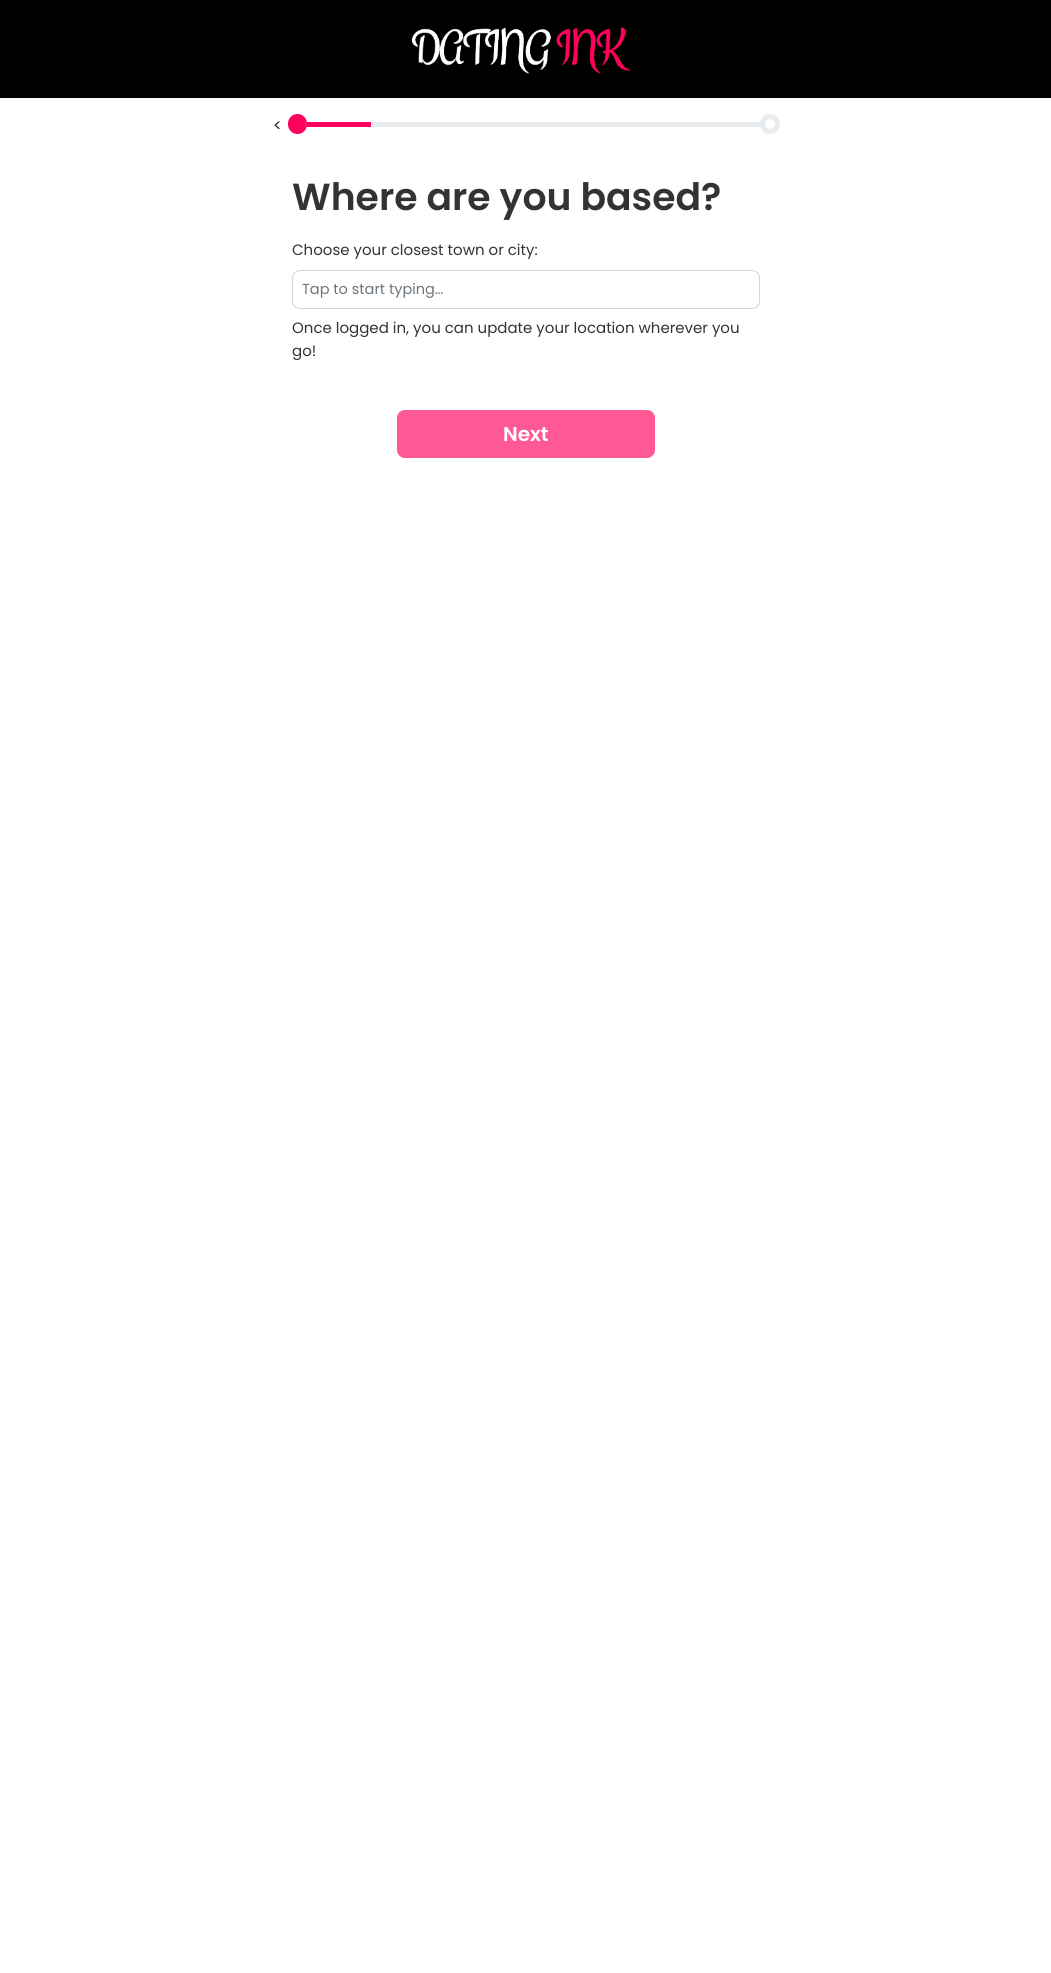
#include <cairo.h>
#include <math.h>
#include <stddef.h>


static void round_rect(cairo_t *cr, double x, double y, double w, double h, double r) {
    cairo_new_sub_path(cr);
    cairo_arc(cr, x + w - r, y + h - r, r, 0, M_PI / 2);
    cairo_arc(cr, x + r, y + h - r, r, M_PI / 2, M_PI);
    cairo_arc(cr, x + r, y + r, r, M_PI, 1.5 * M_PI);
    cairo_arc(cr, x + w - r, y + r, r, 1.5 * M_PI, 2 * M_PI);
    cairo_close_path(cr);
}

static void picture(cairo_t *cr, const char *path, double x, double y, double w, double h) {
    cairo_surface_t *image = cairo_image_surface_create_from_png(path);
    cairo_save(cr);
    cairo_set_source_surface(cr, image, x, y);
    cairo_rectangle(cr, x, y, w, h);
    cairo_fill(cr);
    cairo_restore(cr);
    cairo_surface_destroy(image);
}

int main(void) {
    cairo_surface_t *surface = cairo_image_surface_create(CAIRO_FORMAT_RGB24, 1051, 1973);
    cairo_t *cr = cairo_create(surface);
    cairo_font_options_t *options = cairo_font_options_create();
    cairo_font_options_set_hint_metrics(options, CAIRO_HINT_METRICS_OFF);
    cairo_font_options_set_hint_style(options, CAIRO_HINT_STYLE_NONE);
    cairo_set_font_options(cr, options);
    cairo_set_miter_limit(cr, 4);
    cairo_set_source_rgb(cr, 1, 1, 1);
    cairo_paint(cr);
    cairo_set_source_rgb(cr, 0, 0, 0);
    cairo_rectangle(cr, 0, 0, 1051, 98);
    cairo_fill(cr);
    picture(cr, "img1.png", 411, 27, 220, 47);
    cairo_select_font_face(cr, "Poppins", CAIRO_FONT_SLANT_NORMAL, CAIRO_FONT_WEIGHT_NORMAL);
    cairo_set_font_size(cr, 16);
    cairo_set_source_rgb(cr, 0.129, 0.145, 0.161);
    cairo_move_to(cr, 273, 131);
    cairo_show_text(cr, "<");
    cairo_set_source_rgb(cr, 1, 0, 0.361);
    round_rect(cr, 290.5, 116.5, 14, 15, 7);
    cairo_fill_preserve(cr);
    cairo_set_line_width(cr, 5);
    cairo_stroke(cr);
    cairo_arc(cr, 770, 124, 7.5, 0, 2 * M_PI);
    cairo_set_source_rgb(cr, 0.914, 0.925, 0.937);
    cairo_stroke(cr);
    round_rect(cr, 305, 122, 457, 5, 2.5);
    cairo_fill(cr);
    cairo_set_source_rgb(cr, 1, 0, 0.361);
    cairo_new_path(cr);
    cairo_move_to(cr, 307.5, 122);
    cairo_line_to(cr, 371, 122);
    cairo_line_to(cr, 371, 127);
    cairo_line_to(cr, 307.5, 127);
    cairo_curve_to(cr, 306, 127, 305, 126, 305, 124.5);
    cairo_curve_to(cr, 305, 123, 306, 122, 307.5, 122);
    cairo_close_path(cr);
    cairo_fill(cr);
    cairo_select_font_face(cr, "Poppins SemiBold", CAIRO_FONT_SLANT_NORMAL, CAIRO_FONT_WEIGHT_NORMAL);
    cairo_set_font_size(cr, 37.75);
    cairo_set_source_rgb(cr, 0.2, 0.2, 0.2);
    cairo_move_to(cr, 292, 210);
    cairo_show_text(cr, "Where are you based?");
    cairo_select_font_face(cr, "Poppins", CAIRO_FONT_SLANT_NORMAL, CAIRO_FONT_WEIGHT_NORMAL);
    cairo_set_font_size(cr, 15);
    cairo_move_to(cr, 292, 255);
    cairo_show_text(cr, "Choose your closest town or city:");
    round_rect(cr, 292.5, 270.5, 467, 38, 7.5);
    cairo_set_source_rgb(cr, 0.808, 0.831, 0.855);
    cairo_set_line_width(cr, 1);
    cairo_stroke(cr);
    cairo_set_font_size(cr, 14.5);
    cairo_set_source_rgb(cr, 0.424, 0.459, 0.49);
    cairo_move_to(cr, 302, 294);
    cairo_show_text(cr, "Tap to start typing…");
    cairo_set_font_size(cr, 15);
    cairo_set_source_rgb(cr, 0.2, 0.2, 0.2);
    cairo_move_to(cr, 292, 333);
    cairo_show_text(cr, "Once logged in, you can update your location wherever you");
    cairo_move_to(cr, 292, 356);
    cairo_show_text(cr, "go!");
    cairo_set_source_rgb(cr, 1, 0.349, 0.584);
    round_rect(cr, 397.5, 410.5, 257, 47, 7.5);
    cairo_fill_preserve(cr);
    cairo_stroke(cr);
    cairo_select_font_face(cr, "Poppins SemiBold", CAIRO_FONT_SLANT_NORMAL, CAIRO_FONT_WEIGHT_NORMAL);
    cairo_set_font_size(cr, 20);
    cairo_set_source_rgb(cr, 1, 1, 1);
    cairo_move_to(cr, 503, 441);
    cairo_show_text(cr, "Next");
    cairo_surface_write_to_png(surface, "page.png");
    cairo_font_options_destroy(options);
    cairo_destroy(cr);
    cairo_surface_destroy(surface);
    return 0;
}
